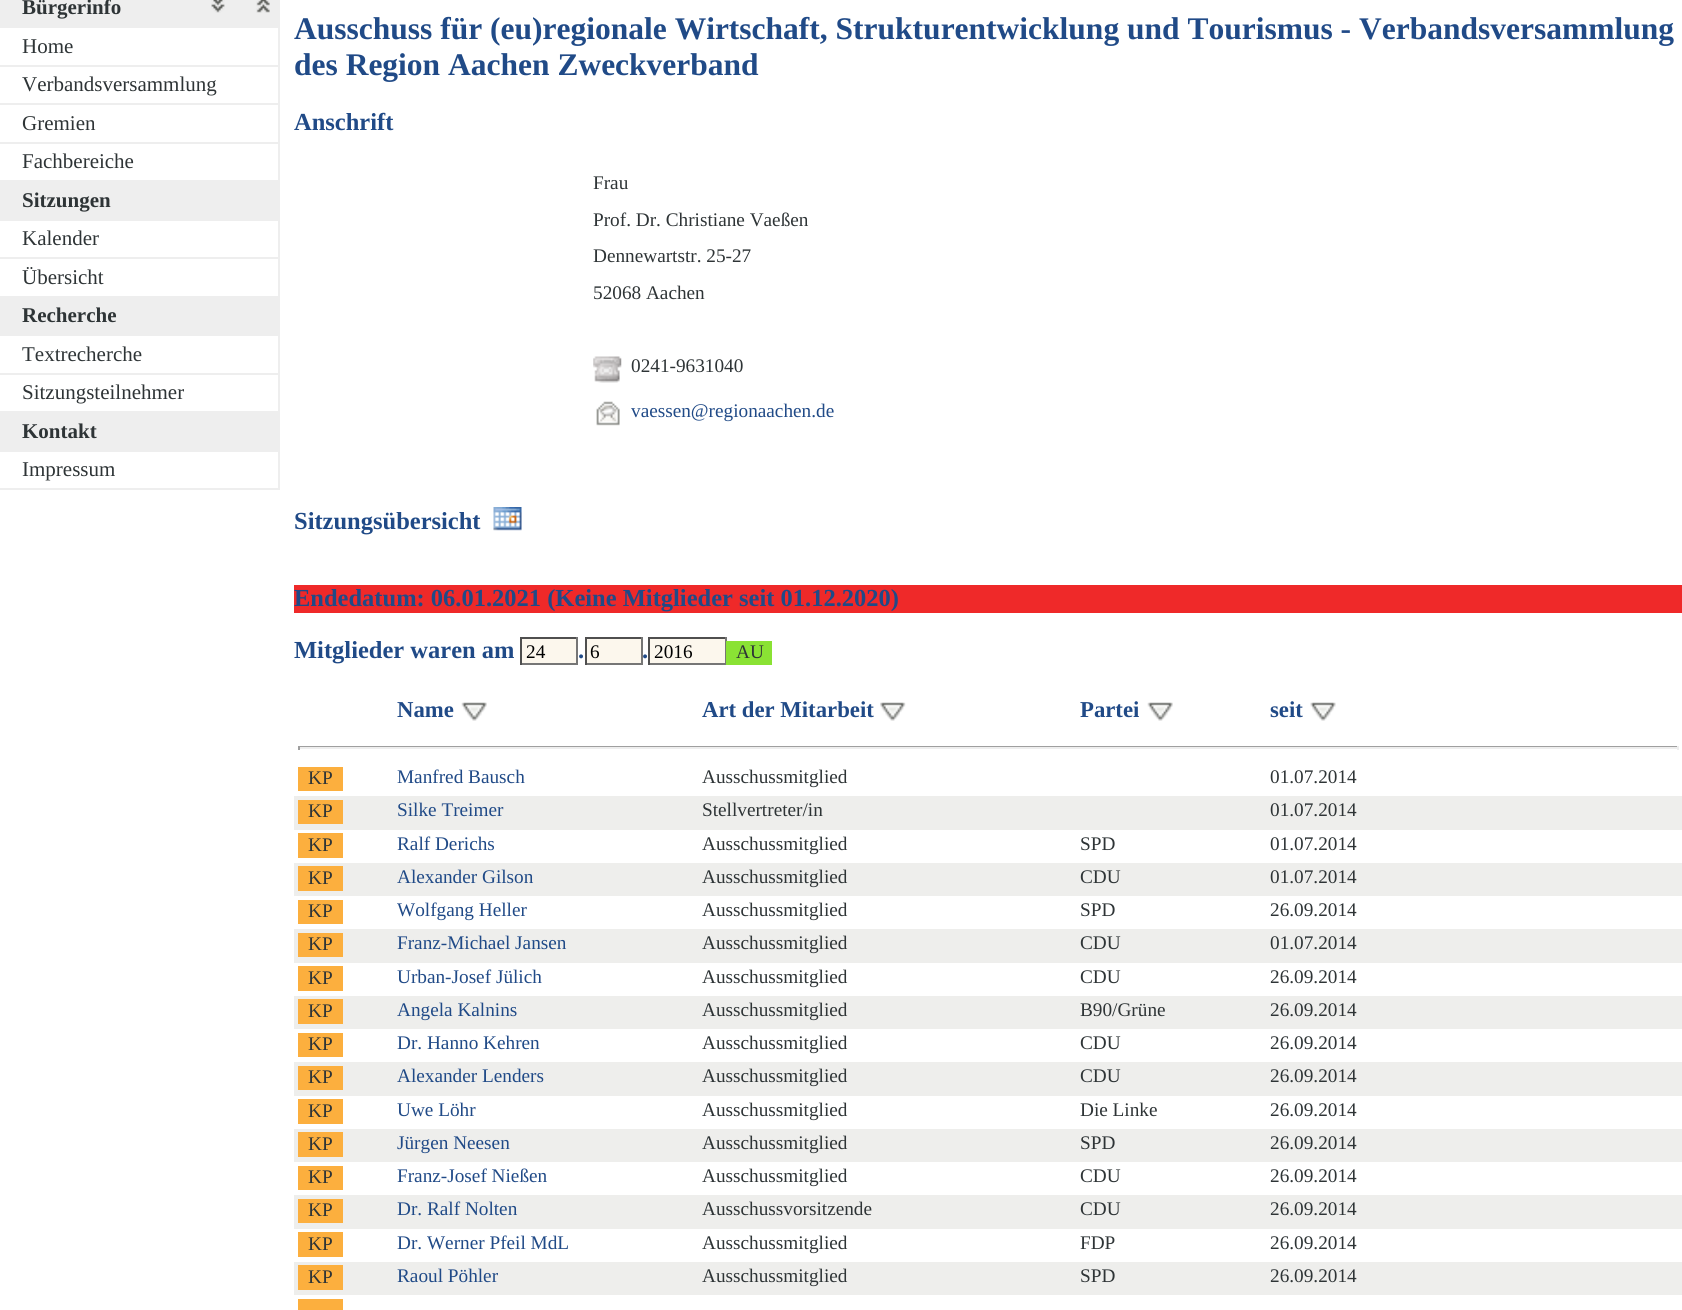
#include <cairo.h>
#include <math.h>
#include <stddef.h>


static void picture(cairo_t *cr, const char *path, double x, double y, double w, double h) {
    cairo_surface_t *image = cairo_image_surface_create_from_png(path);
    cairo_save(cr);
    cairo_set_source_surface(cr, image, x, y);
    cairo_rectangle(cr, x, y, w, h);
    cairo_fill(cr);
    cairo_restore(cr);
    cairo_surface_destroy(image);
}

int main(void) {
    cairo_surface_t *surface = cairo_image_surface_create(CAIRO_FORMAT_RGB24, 1682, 1310);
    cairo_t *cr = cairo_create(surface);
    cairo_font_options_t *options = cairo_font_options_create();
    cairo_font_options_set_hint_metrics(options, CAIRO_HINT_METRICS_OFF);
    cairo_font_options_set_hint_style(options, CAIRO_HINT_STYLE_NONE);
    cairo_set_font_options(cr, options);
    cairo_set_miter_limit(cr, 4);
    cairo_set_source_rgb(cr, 1, 1, 1);
    cairo_paint(cr);
    cairo_set_source_rgb(cr, 0.933, 0.933, 0.933);
    cairo_rectangle(cr, 0, 0, 280, 490);
    cairo_fill(cr);
    cairo_select_font_face(cr, "Liberation Serif", CAIRO_FONT_SLANT_NORMAL, CAIRO_FONT_WEIGHT_BOLD);
    cairo_set_font_size(cr, 21);
    cairo_set_source_rgb(cr, 0.18, 0.204, 0.212);
    cairo_move_to(cr, 22, 14);
    cairo_show_text(cr, "Bürgerinfo");
    picture(cr, "img1.png", 211, 0, 14, 13);
    picture(cr, "img2.png", 256, 0, 14, 13);
    cairo_set_source_rgb(cr, 1, 1, 1);
    cairo_rectangle(cr, 0, 28, 278, 37);
    cairo_fill(cr);
    cairo_select_font_face(cr, "Liberation Serif", CAIRO_FONT_SLANT_NORMAL, CAIRO_FONT_WEIGHT_NORMAL);
    cairo_set_source_rgb(cr, 0.18, 0.204, 0.212);
    cairo_move_to(cr, 22, 53);
    cairo_show_text(cr, "Home");
    cairo_set_source_rgb(cr, 1, 1, 1);
    cairo_rectangle(cr, 0, 67, 278, 36);
    cairo_fill(cr);
    cairo_set_source_rgb(cr, 0.18, 0.204, 0.212);
    cairo_move_to(cr, 22, 91);
    cairo_show_text(cr, "Verbandsversammlung");
    cairo_set_source_rgb(cr, 1, 1, 1);
    cairo_rectangle(cr, 0, 105, 278, 37);
    cairo_fill(cr);
    cairo_set_source_rgb(cr, 0.18, 0.204, 0.212);
    cairo_move_to(cr, 22, 130);
    cairo_show_text(cr, "Gremien");
    cairo_set_source_rgb(cr, 1, 1, 1);
    cairo_rectangle(cr, 0, 144, 278, 36);
    cairo_fill(cr);
    cairo_set_source_rgb(cr, 0.18, 0.204, 0.212);
    cairo_move_to(cr, 22, 168);
    cairo_show_text(cr, "Fachbereiche");
    cairo_select_font_face(cr, "Liberation Serif", CAIRO_FONT_SLANT_NORMAL, CAIRO_FONT_WEIGHT_BOLD);
    cairo_move_to(cr, 22, 207);
    cairo_show_text(cr, "Sitzungen");
    cairo_set_source_rgb(cr, 1, 1, 1);
    cairo_rectangle(cr, 0, 221, 278, 36);
    cairo_fill(cr);
    cairo_select_font_face(cr, "Liberation Serif", CAIRO_FONT_SLANT_NORMAL, CAIRO_FONT_WEIGHT_NORMAL);
    cairo_set_source_rgb(cr, 0.18, 0.204, 0.212);
    cairo_move_to(cr, 22, 245);
    cairo_show_text(cr, "Kalender");
    cairo_set_source_rgb(cr, 1, 1, 1);
    cairo_rectangle(cr, 0, 259, 278, 37);
    cairo_fill(cr);
    cairo_set_source_rgb(cr, 0.18, 0.204, 0.212);
    cairo_move_to(cr, 22, 284);
    cairo_show_text(cr, "Übersicht");
    cairo_select_font_face(cr, "Liberation Serif", CAIRO_FONT_SLANT_NORMAL, CAIRO_FONT_WEIGHT_BOLD);
    cairo_move_to(cr, 22, 322);
    cairo_show_text(cr, "Recherche");
    cairo_set_source_rgb(cr, 1, 1, 1);
    cairo_rectangle(cr, 0, 336, 278, 37);
    cairo_fill(cr);
    cairo_select_font_face(cr, "Liberation Serif", CAIRO_FONT_SLANT_NORMAL, CAIRO_FONT_WEIGHT_NORMAL);
    cairo_set_source_rgb(cr, 0.18, 0.204, 0.212);
    cairo_move_to(cr, 22, 361);
    cairo_show_text(cr, "Textrecherche");
    cairo_set_source_rgb(cr, 1, 1, 1);
    cairo_rectangle(cr, 0, 375, 278, 36);
    cairo_fill(cr);
    cairo_set_source_rgb(cr, 0.18, 0.204, 0.212);
    cairo_move_to(cr, 22, 399);
    cairo_show_text(cr, "Sitzungsteilnehmer");
    cairo_select_font_face(cr, "Liberation Serif", CAIRO_FONT_SLANT_NORMAL, CAIRO_FONT_WEIGHT_BOLD);
    cairo_move_to(cr, 22, 438);
    cairo_show_text(cr, "Kontakt");
    cairo_set_source_rgb(cr, 1, 1, 1);
    cairo_rectangle(cr, 0, 452, 278, 36);
    cairo_fill(cr);
    cairo_select_font_face(cr, "Liberation Serif", CAIRO_FONT_SLANT_NORMAL, CAIRO_FONT_WEIGHT_NORMAL);
    cairo_set_source_rgb(cr, 0.18, 0.204, 0.212);
    cairo_move_to(cr, 22, 476);
    cairo_show_text(cr, "Impressum");
    cairo_select_font_face(cr, "Liberation Serif", CAIRO_FONT_SLANT_NORMAL, CAIRO_FONT_WEIGHT_BOLD);
    cairo_set_font_size(cr, 31.5);
    cairo_set_source_rgb(cr, 0.125, 0.29, 0.529);
    cairo_move_to(cr, 294, 39);
    cairo_show_text(cr, "Ausschuss für (eu)regionale Wirtschaft, Strukturentwicklung und Tourismus - Verbandsversammlung");
    cairo_move_to(cr, 294, 75);
    cairo_show_text(cr, "des Region Aachen Zweckverband");
    cairo_set_font_size(cr, 24.5);
    cairo_move_to(cr, 294, 130);
    cairo_show_text(cr, "Anschrift");
    cairo_select_font_face(cr, "Liberation Serif", CAIRO_FONT_SLANT_NORMAL, CAIRO_FONT_WEIGHT_NORMAL);
    cairo_set_font_size(cr, 19.25);
    cairo_set_source_rgb(cr, 0.18, 0.204, 0.212);
    cairo_move_to(cr, 593, 189);
    cairo_show_text(cr, "Frau");
    cairo_move_to(cr, 593, 226);
    cairo_show_text(cr, "Prof. Dr. Christiane Vaeßen");
    cairo_move_to(cr, 593, 262);
    cairo_show_text(cr, "Dennewartstr. 25-27");
    cairo_move_to(cr, 593, 299);
    cairo_show_text(cr, "52068 Aachen");
    picture(cr, "img3.png", 593, 356, 29, 27);
    cairo_move_to(cr, 631, 372);
    cairo_show_text(cr, "0241-9631040");
    picture(cr, "img4.png", 596, 401, 24, 25);
    cairo_set_source_rgb(cr, 0.125, 0.29, 0.529);
    cairo_move_to(cr, 631, 417);
    cairo_show_text(cr, "vaessen@regionaachen.de");
    cairo_select_font_face(cr, "Liberation Serif", CAIRO_FONT_SLANT_NORMAL, CAIRO_FONT_WEIGHT_BOLD);
    cairo_set_font_size(cr, 24.5);
    cairo_move_to(cr, 294, 529);
    cairo_show_text(cr, "Sitzungsübersicht");
    picture(cr, "img5.png", 493, 507, 29, 24);
    cairo_set_source_rgb(cr, 0.937, 0.161, 0.161);
    cairo_rectangle(cr, 294, 585, 1388, 28);
    cairo_fill(cr);
    cairo_set_source_rgb(cr, 0.125, 0.29, 0.529);
    cairo_move_to(cr, 294, 606);
    cairo_show_text(cr, "Endedatum: 06.01.2021 (Keine Mitglieder seit 01.12.2020)");
    cairo_move_to(cr, 294, 658);
    cairo_show_text(cr, "Mitglieder waren am");
    cairo_set_source_rgb(cr, 0.988, 0.965, 0.929);
    cairo_rectangle(cr, 522, 639, 54, 24);
    cairo_fill(cr);
    cairo_set_source_rgb(cr, 0.31, 0.31, 0.31);
    cairo_rectangle(cr, 520, 637, 58, 2);
    cairo_fill(cr);
    cairo_set_source_rgb(cr, 0.463, 0.463, 0.463);
    cairo_rectangle(cr, 576, 637, 2, 28);
    cairo_fill(cr);
    cairo_rectangle(cr, 520, 663, 58, 2);
    cairo_fill(cr);
    cairo_set_source_rgb(cr, 0.31, 0.31, 0.31);
    cairo_rectangle(cr, 520, 637, 2, 28);
    cairo_fill(cr);
    cairo_select_font_face(cr, "Liberation Serif", CAIRO_FONT_SLANT_NORMAL, CAIRO_FONT_WEIGHT_NORMAL);
    cairo_set_font_size(cr, 19.25);
    cairo_set_source_rgb(cr, 0, 0, 0);
    cairo_move_to(cr, 526, 658);
    cairo_show_text(cr, "24");
    cairo_select_font_face(cr, "Liberation Serif", CAIRO_FONT_SLANT_NORMAL, CAIRO_FONT_WEIGHT_BOLD);
    cairo_set_font_size(cr, 24.5);
    cairo_set_source_rgb(cr, 0.125, 0.29, 0.529);
    cairo_move_to(cr, 578, 658);
    cairo_show_text(cr, ".");
    cairo_set_source_rgb(cr, 0.988, 0.965, 0.929);
    cairo_rectangle(cr, 587, 639, 54, 24);
    cairo_fill(cr);
    cairo_set_source_rgb(cr, 0.31, 0.31, 0.31);
    cairo_rectangle(cr, 585, 637, 57, 2);
    cairo_fill(cr);
    cairo_set_source_rgb(cr, 0.463, 0.463, 0.463);
    cairo_rectangle(cr, 641, 637, 2, 28);
    cairo_fill(cr);
    cairo_rectangle(cr, 585, 663, 57, 2);
    cairo_fill(cr);
    cairo_set_source_rgb(cr, 0.31, 0.31, 0.31);
    cairo_rectangle(cr, 585, 637, 2, 28);
    cairo_fill(cr);
    cairo_select_font_face(cr, "Liberation Serif", CAIRO_FONT_SLANT_NORMAL, CAIRO_FONT_WEIGHT_NORMAL);
    cairo_set_font_size(cr, 19.25);
    cairo_set_source_rgb(cr, 0, 0, 0);
    cairo_move_to(cr, 590, 658);
    cairo_show_text(cr, "6");
    cairo_select_font_face(cr, "Liberation Serif", CAIRO_FONT_SLANT_NORMAL, CAIRO_FONT_WEIGHT_BOLD);
    cairo_set_font_size(cr, 24.5);
    cairo_set_source_rgb(cr, 0.125, 0.29, 0.529);
    cairo_move_to(cr, 642, 658);
    cairo_show_text(cr, ".");
    cairo_set_source_rgb(cr, 0.988, 0.965, 0.929);
    cairo_rectangle(cr, 650, 639, 75, 24);
    cairo_fill(cr);
    cairo_set_source_rgb(cr, 0.31, 0.31, 0.31);
    cairo_rectangle(cr, 648, 637, 78, 2);
    cairo_fill(cr);
    cairo_set_source_rgb(cr, 0.463, 0.463, 0.463);
    cairo_rectangle(cr, 725, 637, 2, 28);
    cairo_fill(cr);
    cairo_rectangle(cr, 648, 663, 78, 2);
    cairo_fill(cr);
    cairo_set_source_rgb(cr, 0.31, 0.31, 0.31);
    cairo_rectangle(cr, 648, 637, 2, 28);
    cairo_fill(cr);
    cairo_select_font_face(cr, "Liberation Serif", CAIRO_FONT_SLANT_NORMAL, CAIRO_FONT_WEIGHT_NORMAL);
    cairo_set_font_size(cr, 19.25);
    cairo_set_source_rgb(cr, 0, 0, 0);
    cairo_move_to(cr, 654, 658);
    cairo_show_text(cr, "2016");
    cairo_set_source_rgb(cr, 0.541, 0.886, 0.204);
    cairo_rectangle(cr, 726, 641, 46, 24);
    cairo_fill(cr);
    cairo_set_source_rgb(cr, 0.18, 0.204, 0.212);
    cairo_move_to(cr, 736, 658);
    cairo_show_text(cr, "AU");
    cairo_select_font_face(cr, "Liberation Serif", CAIRO_FONT_SLANT_NORMAL, CAIRO_FONT_WEIGHT_BOLD);
    cairo_set_font_size(cr, 22.75);
    cairo_set_source_rgb(cr, 0.125, 0.29, 0.529);
    cairo_move_to(cr, 397, 717);
    cairo_show_text(cr, "Name");
    picture(cr, "img6.png", 461, 702, 26, 19);
    cairo_move_to(cr, 702, 717);
    cairo_show_text(cr, "Art der Mitarbeit");
    picture(cr, "img7.png", 880, 702, 26, 19);
    cairo_move_to(cr, 1080, 717);
    cairo_show_text(cr, "Partei");
    picture(cr, "img6.png", 1147, 702, 26, 19);
    cairo_move_to(cr, 1270, 717);
    cairo_show_text(cr, "seit");
    picture(cr, "img8.png", 1310, 702, 26, 19);
    cairo_set_source_rgb(cr, 0.624, 0.624, 0.624);
    cairo_rectangle(cr, 298, 746, 1380, 1);
    cairo_fill(cr);
    cairo_set_source_rgb(cr, 0.933, 0.933, 0.933);
    cairo_rectangle(cr, 1677, 746, 2, 4);
    cairo_fill(cr);
    cairo_rectangle(cr, 298, 747, 1380, 2);
    cairo_fill(cr);
    cairo_set_source_rgb(cr, 0.624, 0.624, 0.624);
    cairo_rectangle(cr, 298, 746, 2, 4);
    cairo_fill(cr);
    cairo_set_source_rgb(cr, 0.988, 0.686, 0.243);
    cairo_rectangle(cr, 298, 767, 45, 24);
    cairo_fill(cr);
    cairo_select_font_face(cr, "Liberation Serif", CAIRO_FONT_SLANT_NORMAL, CAIRO_FONT_WEIGHT_NORMAL);
    cairo_set_font_size(cr, 19.25);
    cairo_set_source_rgb(cr, 0.18, 0.204, 0.212);
    cairo_move_to(cr, 308, 784);
    cairo_show_text(cr, "KP");
    cairo_set_source_rgb(cr, 0.125, 0.29, 0.529);
    cairo_move_to(cr, 397, 783);
    cairo_show_text(cr, "Manfred Bausch");
    cairo_set_source_rgb(cr, 0.18, 0.204, 0.212);
    cairo_move_to(cr, 702, 783);
    cairo_show_text(cr, "Ausschussmitglied");
    cairo_move_to(cr, 1270, 783);
    cairo_show_text(cr, "01.07.2014");
    cairo_set_source_rgb(cr, 0.933, 0.933, 0.925);
    cairo_rectangle(cr, 294, 796, 1388, 34);
    cairo_fill(cr);
    cairo_set_source_rgb(cr, 0.988, 0.686, 0.243);
    cairo_rectangle(cr, 298, 800, 45, 24);
    cairo_fill(cr);
    cairo_set_source_rgb(cr, 0.18, 0.204, 0.212);
    cairo_move_to(cr, 308, 817);
    cairo_show_text(cr, "KP");
    cairo_set_source_rgb(cr, 0.125, 0.29, 0.529);
    cairo_move_to(cr, 397, 816);
    cairo_show_text(cr, "Silke Treimer");
    cairo_set_source_rgb(cr, 0.18, 0.204, 0.212);
    cairo_move_to(cr, 702, 816);
    cairo_show_text(cr, "Stellvertreter/in");
    cairo_move_to(cr, 1270, 816);
    cairo_show_text(cr, "01.07.2014");
    cairo_set_source_rgb(cr, 0.988, 0.686, 0.243);
    cairo_rectangle(cr, 298, 833, 45, 25);
    cairo_fill(cr);
    cairo_set_source_rgb(cr, 0.18, 0.204, 0.212);
    cairo_move_to(cr, 308, 851);
    cairo_show_text(cr, "KP");
    cairo_set_source_rgb(cr, 0.125, 0.29, 0.529);
    cairo_move_to(cr, 397, 850);
    cairo_show_text(cr, "Ralf Derichs");
    cairo_set_source_rgb(cr, 0.18, 0.204, 0.212);
    cairo_move_to(cr, 702, 850);
    cairo_show_text(cr, "Ausschussmitglied");
    cairo_move_to(cr, 1080, 850);
    cairo_show_text(cr, "SPD");
    cairo_move_to(cr, 1270, 850);
    cairo_show_text(cr, "01.07.2014");
    cairo_set_source_rgb(cr, 0.933, 0.933, 0.925);
    cairo_rectangle(cr, 294, 863, 1388, 33);
    cairo_fill(cr);
    cairo_set_source_rgb(cr, 0.988, 0.686, 0.243);
    cairo_rectangle(cr, 298, 866, 45, 25);
    cairo_fill(cr);
    cairo_set_source_rgb(cr, 0.18, 0.204, 0.212);
    cairo_move_to(cr, 308, 884);
    cairo_show_text(cr, "KP");
    cairo_set_source_rgb(cr, 0.125, 0.29, 0.529);
    cairo_move_to(cr, 397, 883);
    cairo_show_text(cr, "Alexander Gilson");
    cairo_set_source_rgb(cr, 0.18, 0.204, 0.212);
    cairo_move_to(cr, 702, 883);
    cairo_show_text(cr, "Ausschussmitglied");
    cairo_move_to(cr, 1080, 883);
    cairo_show_text(cr, "CDU");
    cairo_move_to(cr, 1270, 883);
    cairo_show_text(cr, "01.07.2014");
    cairo_set_source_rgb(cr, 0.988, 0.686, 0.243);
    cairo_rectangle(cr, 298, 900, 45, 24);
    cairo_fill(cr);
    cairo_set_source_rgb(cr, 0.18, 0.204, 0.212);
    cairo_move_to(cr, 308, 917);
    cairo_show_text(cr, "KP");
    cairo_set_source_rgb(cr, 0.125, 0.29, 0.529);
    cairo_move_to(cr, 397, 916);
    cairo_show_text(cr, "Wolfgang Heller");
    cairo_set_source_rgb(cr, 0.18, 0.204, 0.212);
    cairo_move_to(cr, 702, 916);
    cairo_show_text(cr, "Ausschussmitglied");
    cairo_move_to(cr, 1080, 916);
    cairo_show_text(cr, "SPD");
    cairo_move_to(cr, 1270, 916);
    cairo_show_text(cr, "26.09.2014");
    cairo_set_source_rgb(cr, 0.933, 0.933, 0.925);
    cairo_rectangle(cr, 294, 929, 1388, 34);
    cairo_fill(cr);
    cairo_set_source_rgb(cr, 0.988, 0.686, 0.243);
    cairo_rectangle(cr, 298, 933, 45, 24);
    cairo_fill(cr);
    cairo_set_source_rgb(cr, 0.18, 0.204, 0.212);
    cairo_move_to(cr, 308, 950);
    cairo_show_text(cr, "KP");
    cairo_set_source_rgb(cr, 0.125, 0.29, 0.529);
    cairo_move_to(cr, 397, 949);
    cairo_show_text(cr, "Franz-Michael Jansen");
    cairo_set_source_rgb(cr, 0.18, 0.204, 0.212);
    cairo_move_to(cr, 702, 949);
    cairo_show_text(cr, "Ausschussmitglied");
    cairo_move_to(cr, 1080, 949);
    cairo_show_text(cr, "CDU");
    cairo_move_to(cr, 1270, 949);
    cairo_show_text(cr, "01.07.2014");
    cairo_set_source_rgb(cr, 0.988, 0.686, 0.243);
    cairo_rectangle(cr, 298, 966, 45, 25);
    cairo_fill(cr);
    cairo_set_source_rgb(cr, 0.18, 0.204, 0.212);
    cairo_move_to(cr, 308, 984);
    cairo_show_text(cr, "KP");
    cairo_set_source_rgb(cr, 0.125, 0.29, 0.529);
    cairo_move_to(cr, 397, 983);
    cairo_show_text(cr, "Urban-Josef Jülich");
    cairo_set_source_rgb(cr, 0.18, 0.204, 0.212);
    cairo_move_to(cr, 702, 983);
    cairo_show_text(cr, "Ausschussmitglied");
    cairo_move_to(cr, 1080, 983);
    cairo_show_text(cr, "CDU");
    cairo_move_to(cr, 1270, 983);
    cairo_show_text(cr, "26.09.2014");
    cairo_set_source_rgb(cr, 0.933, 0.933, 0.925);
    cairo_rectangle(cr, 294, 996, 1388, 33);
    cairo_fill(cr);
    cairo_set_source_rgb(cr, 0.988, 0.686, 0.243);
    cairo_rectangle(cr, 298, 999, 45, 25);
    cairo_fill(cr);
    cairo_set_source_rgb(cr, 0.18, 0.204, 0.212);
    cairo_move_to(cr, 308, 1017);
    cairo_show_text(cr, "KP");
    cairo_set_source_rgb(cr, 0.125, 0.29, 0.529);
    cairo_move_to(cr, 397, 1016);
    cairo_show_text(cr, "Angela Kalnins");
    cairo_set_source_rgb(cr, 0.18, 0.204, 0.212);
    cairo_move_to(cr, 702, 1016);
    cairo_show_text(cr, "Ausschussmitglied");
    cairo_move_to(cr, 1080, 1016);
    cairo_show_text(cr, "B90/Grüne");
    cairo_move_to(cr, 1270, 1016);
    cairo_show_text(cr, "26.09.2014");
    cairo_set_source_rgb(cr, 0.988, 0.686, 0.243);
    cairo_rectangle(cr, 298, 1033, 45, 24);
    cairo_fill(cr);
    cairo_set_source_rgb(cr, 0.18, 0.204, 0.212);
    cairo_move_to(cr, 308, 1050);
    cairo_show_text(cr, "KP");
    cairo_set_source_rgb(cr, 0.125, 0.29, 0.529);
    cairo_move_to(cr, 397, 1049);
    cairo_show_text(cr, "Dr. Hanno Kehren");
    cairo_set_source_rgb(cr, 0.18, 0.204, 0.212);
    cairo_move_to(cr, 702, 1049);
    cairo_show_text(cr, "Ausschussmitglied");
    cairo_move_to(cr, 1080, 1049);
    cairo_show_text(cr, "CDU");
    cairo_move_to(cr, 1270, 1049);
    cairo_show_text(cr, "26.09.2014");
    cairo_set_source_rgb(cr, 0.933, 0.933, 0.925);
    cairo_rectangle(cr, 294, 1062, 1388, 34);
    cairo_fill(cr);
    cairo_set_source_rgb(cr, 0.988, 0.686, 0.243);
    cairo_rectangle(cr, 298, 1066, 45, 24);
    cairo_fill(cr);
    cairo_set_source_rgb(cr, 0.18, 0.204, 0.212);
    cairo_move_to(cr, 308, 1083);
    cairo_show_text(cr, "KP");
    cairo_set_source_rgb(cr, 0.125, 0.29, 0.529);
    cairo_move_to(cr, 397, 1082);
    cairo_show_text(cr, "Alexander Lenders");
    cairo_set_source_rgb(cr, 0.18, 0.204, 0.212);
    cairo_move_to(cr, 702, 1082);
    cairo_show_text(cr, "Ausschussmitglied");
    cairo_move_to(cr, 1080, 1082);
    cairo_show_text(cr, "CDU");
    cairo_move_to(cr, 1270, 1082);
    cairo_show_text(cr, "26.09.2014");
    cairo_set_source_rgb(cr, 0.988, 0.686, 0.243);
    cairo_rectangle(cr, 298, 1099, 45, 25);
    cairo_fill(cr);
    cairo_set_source_rgb(cr, 0.18, 0.204, 0.212);
    cairo_move_to(cr, 308, 1117);
    cairo_show_text(cr, "KP");
    cairo_set_source_rgb(cr, 0.125, 0.29, 0.529);
    cairo_move_to(cr, 397, 1116);
    cairo_show_text(cr, "Uwe Löhr");
    cairo_set_source_rgb(cr, 0.18, 0.204, 0.212);
    cairo_move_to(cr, 702, 1116);
    cairo_show_text(cr, "Ausschussmitglied");
    cairo_move_to(cr, 1080, 1116);
    cairo_show_text(cr, "Die Linke");
    cairo_move_to(cr, 1270, 1116);
    cairo_show_text(cr, "26.09.2014");
    cairo_set_source_rgb(cr, 0.933, 0.933, 0.925);
    cairo_rectangle(cr, 294, 1129, 1388, 33);
    cairo_fill(cr);
    cairo_set_source_rgb(cr, 0.988, 0.686, 0.243);
    cairo_rectangle(cr, 298, 1132, 45, 25);
    cairo_fill(cr);
    cairo_set_source_rgb(cr, 0.18, 0.204, 0.212);
    cairo_move_to(cr, 308, 1150);
    cairo_show_text(cr, "KP");
    cairo_set_source_rgb(cr, 0.125, 0.29, 0.529);
    cairo_move_to(cr, 397, 1149);
    cairo_show_text(cr, "Jürgen Neesen");
    cairo_set_source_rgb(cr, 0.18, 0.204, 0.212);
    cairo_move_to(cr, 702, 1149);
    cairo_show_text(cr, "Ausschussmitglied");
    cairo_move_to(cr, 1080, 1149);
    cairo_show_text(cr, "SPD");
    cairo_move_to(cr, 1270, 1149);
    cairo_show_text(cr, "26.09.2014");
    cairo_set_source_rgb(cr, 0.988, 0.686, 0.243);
    cairo_rectangle(cr, 298, 1166, 45, 24);
    cairo_fill(cr);
    cairo_set_source_rgb(cr, 0.18, 0.204, 0.212);
    cairo_move_to(cr, 308, 1183);
    cairo_show_text(cr, "KP");
    cairo_set_source_rgb(cr, 0.125, 0.29, 0.529);
    cairo_move_to(cr, 397, 1182);
    cairo_show_text(cr, "Franz-Josef Nießen");
    cairo_set_source_rgb(cr, 0.18, 0.204, 0.212);
    cairo_move_to(cr, 702, 1182);
    cairo_show_text(cr, "Ausschussmitglied");
    cairo_move_to(cr, 1080, 1182);
    cairo_show_text(cr, "CDU");
    cairo_move_to(cr, 1270, 1182);
    cairo_show_text(cr, "26.09.2014");
    cairo_set_source_rgb(cr, 0.933, 0.933, 0.925);
    cairo_rectangle(cr, 294, 1195, 1388, 34);
    cairo_fill(cr);
    cairo_set_source_rgb(cr, 0.988, 0.686, 0.243);
    cairo_rectangle(cr, 298, 1199, 45, 24);
    cairo_fill(cr);
    cairo_set_source_rgb(cr, 0.18, 0.204, 0.212);
    cairo_move_to(cr, 308, 1216);
    cairo_show_text(cr, "KP");
    cairo_set_source_rgb(cr, 0.125, 0.29, 0.529);
    cairo_move_to(cr, 397, 1215);
    cairo_show_text(cr, "Dr. Ralf Nolten");
    cairo_set_source_rgb(cr, 0.18, 0.204, 0.212);
    cairo_move_to(cr, 702, 1215);
    cairo_show_text(cr, "Ausschussvorsitzende");
    cairo_move_to(cr, 1080, 1215);
    cairo_show_text(cr, "CDU");
    cairo_move_to(cr, 1270, 1215);
    cairo_show_text(cr, "26.09.2014");
    cairo_set_source_rgb(cr, 0.988, 0.686, 0.243);
    cairo_rectangle(cr, 298, 1232, 45, 25);
    cairo_fill(cr);
    cairo_set_source_rgb(cr, 0.18, 0.204, 0.212);
    cairo_move_to(cr, 308, 1250);
    cairo_show_text(cr, "KP");
    cairo_set_source_rgb(cr, 0.125, 0.29, 0.529);
    cairo_move_to(cr, 397, 1249);
    cairo_show_text(cr, "Dr. Werner Pfeil MdL");
    cairo_set_source_rgb(cr, 0.18, 0.204, 0.212);
    cairo_move_to(cr, 702, 1249);
    cairo_show_text(cr, "Ausschussmitglied");
    cairo_move_to(cr, 1080, 1249);
    cairo_show_text(cr, "FDP");
    cairo_move_to(cr, 1270, 1249);
    cairo_show_text(cr, "26.09.2014");
    cairo_set_source_rgb(cr, 0.933, 0.933, 0.925);
    cairo_rectangle(cr, 294, 1262, 1388, 33);
    cairo_fill(cr);
    cairo_set_source_rgb(cr, 0.988, 0.686, 0.243);
    cairo_rectangle(cr, 298, 1265, 45, 25);
    cairo_fill(cr);
    cairo_set_source_rgb(cr, 0.18, 0.204, 0.212);
    cairo_move_to(cr, 308, 1283);
    cairo_show_text(cr, "KP");
    cairo_set_source_rgb(cr, 0.125, 0.29, 0.529);
    cairo_move_to(cr, 397, 1282);
    cairo_show_text(cr, "Raoul Pöhler");
    cairo_set_source_rgb(cr, 0.18, 0.204, 0.212);
    cairo_move_to(cr, 702, 1282);
    cairo_show_text(cr, "Ausschussmitglied");
    cairo_move_to(cr, 1080, 1282);
    cairo_show_text(cr, "SPD");
    cairo_move_to(cr, 1270, 1282);
    cairo_show_text(cr, "26.09.2014");
    cairo_set_source_rgb(cr, 0.988, 0.686, 0.243);
    cairo_rectangle(cr, 298, 1299, 45, 11);
    cairo_fill(cr);
    cairo_surface_write_to_png(surface, "page.png");
    cairo_font_options_destroy(options);
    cairo_destroy(cr);
    cairo_surface_destroy(surface);
    return 0;
}
